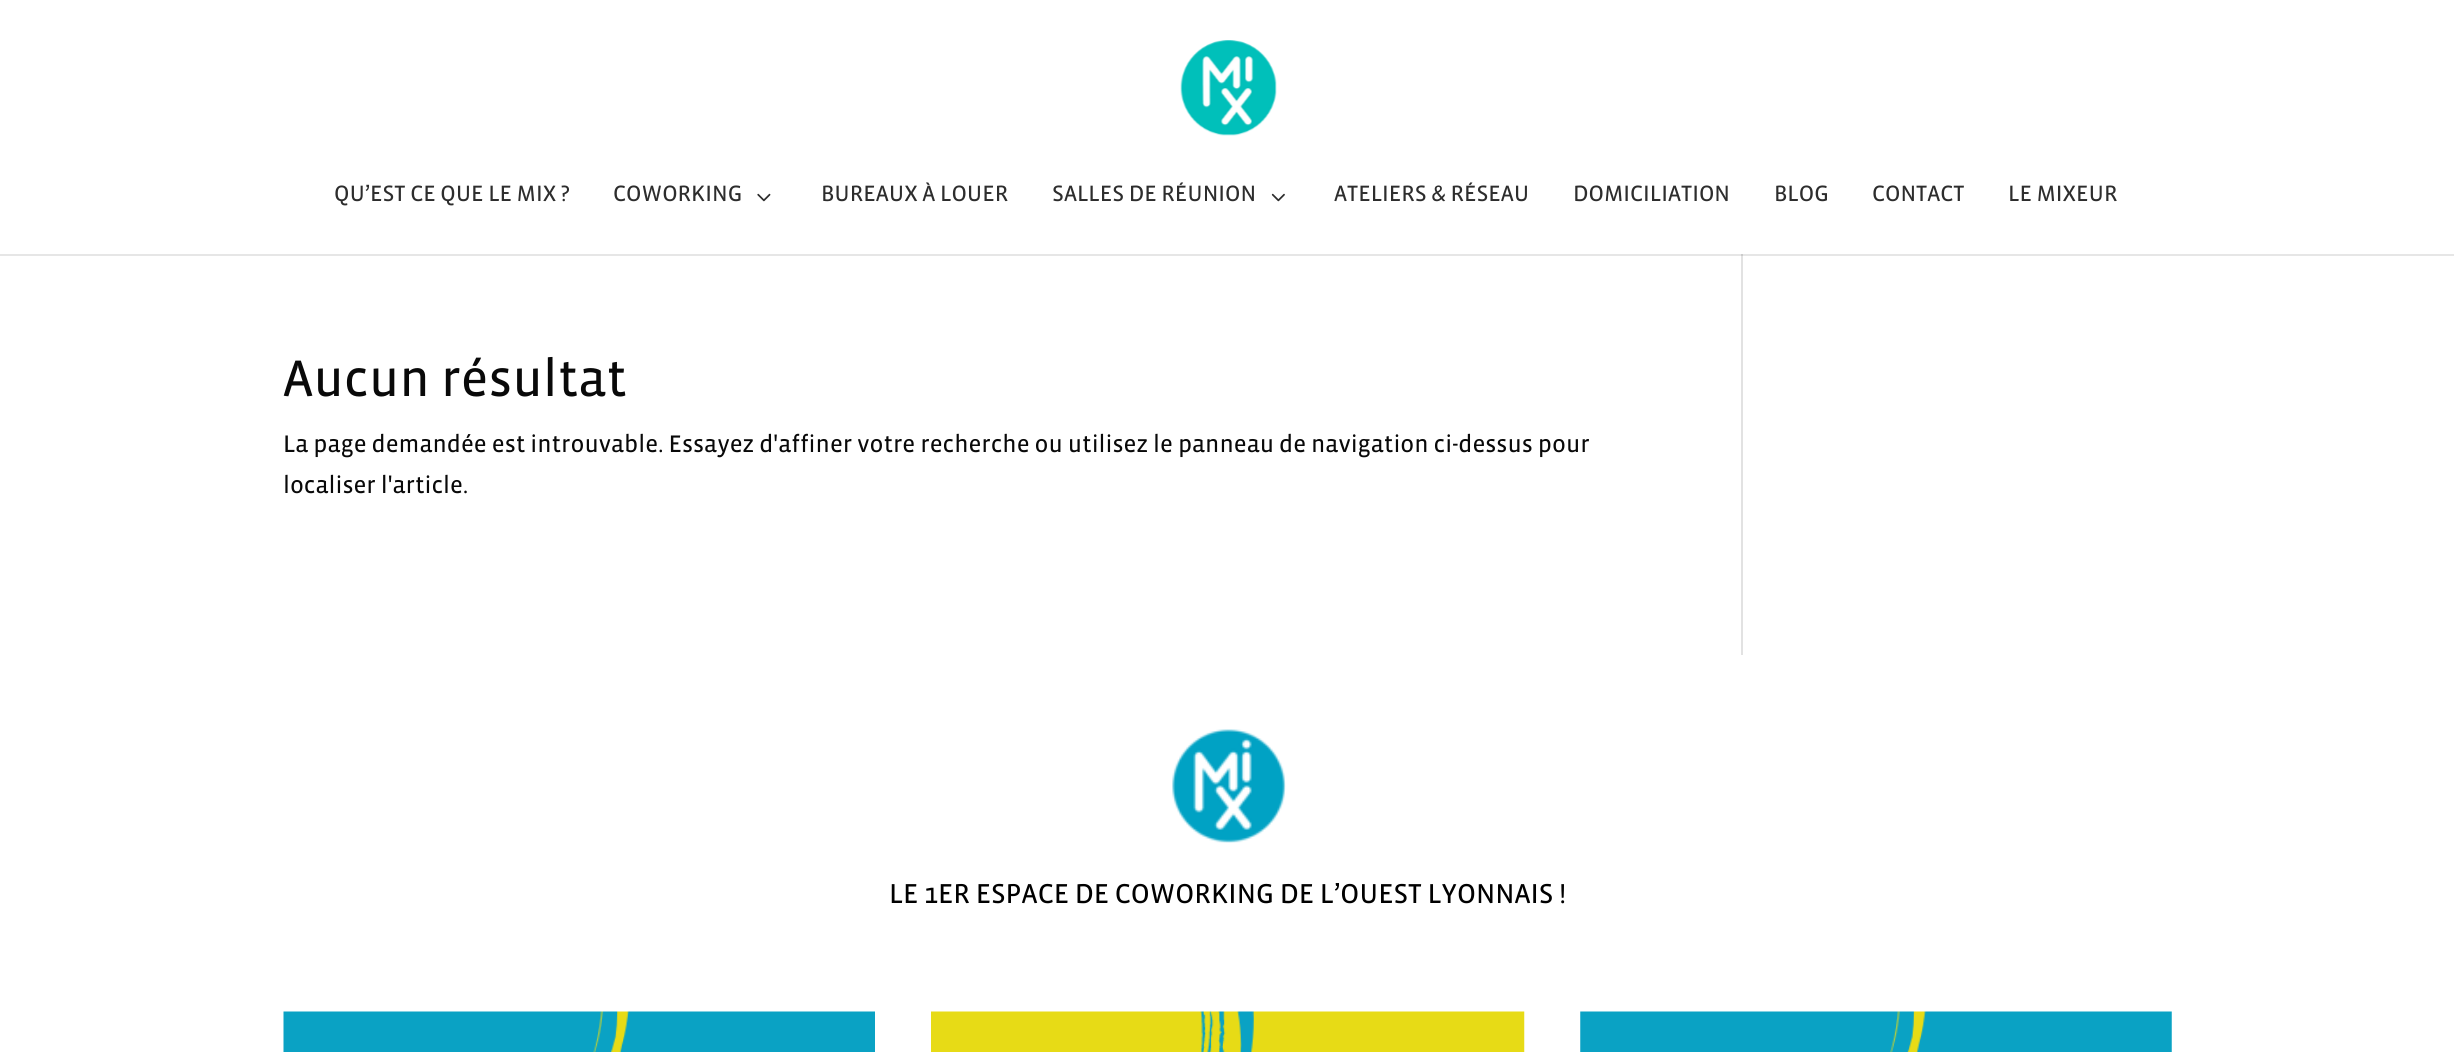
#include <cairo.h>
#include <math.h>
#include <stddef.h>


static void picture(cairo_t *cr, const char *path, double x, double y, double w, double h) {
    cairo_surface_t *image = cairo_image_surface_create_from_png(path);
    cairo_save(cr);
    cairo_set_source_surface(cr, image, x, y);
    cairo_rectangle(cr, x, y, w, h);
    cairo_fill(cr);
    cairo_restore(cr);
    cairo_surface_destroy(image);
}

int main(void) {
    cairo_surface_t *surface = cairo_image_surface_create(CAIRO_FORMAT_RGB24, 2454, 1052);
    cairo_t *cr = cairo_create(surface);
    cairo_font_options_t *options = cairo_font_options_create();
    cairo_font_options_set_hint_metrics(options, CAIRO_HINT_METRICS_OFF);
    cairo_font_options_set_hint_style(options, CAIRO_HINT_STYLE_NONE);
    cairo_set_font_options(cr, options);
    cairo_set_miter_limit(cr, 4);
    cairo_set_source_rgb(cr, 1, 1, 1);
    cairo_paint(cr);
    cairo_set_source_rgb(cr, 0.902, 0.902, 0.902);
    cairo_rectangle(cr, 0, 254, 2454, 2);
    cairo_fill(cr);
    picture(cr, "img1.png", 1180, 40, 97, 96);
    cairo_select_font_face(cr, "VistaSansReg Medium", CAIRO_FONT_SLANT_NORMAL, CAIRO_FONT_WEIGHT_NORMAL);
    cairo_set_font_size(cr, 22.75);
    cairo_set_source_rgb(cr, 0.176, 0.176, 0.176);
    cairo_move_to(cr, 334, 201);
    cairo_show_text(cr, "QU’EST CE QUE LE MIX ?");
    cairo_move_to(cr, 613, 201);
    cairo_show_text(cr, "COWORKING");
    picture(cr, "img2.png", 757, 193, 14, 9);
    cairo_move_to(cr, 821, 201);
    cairo_show_text(cr, "BUREAUX À LOUER");
    cairo_move_to(cr, 1052, 201);
    cairo_show_text(cr, "SALLES DE RÉUNION");
    picture(cr, "img3.png", 1271, 193, 14, 9);
    cairo_move_to(cr, 1334, 201);
    cairo_show_text(cr, "ATELIERS & RÉSEAU");
    cairo_move_to(cr, 1573, 201);
    cairo_show_text(cr, "DOMICILIATION");
    cairo_move_to(cr, 1774, 201);
    cairo_show_text(cr, "BLOG");
    cairo_move_to(cr, 1872, 201);
    cairo_show_text(cr, "CONTACT");
    cairo_move_to(cr, 2008, 201);
    cairo_show_text(cr, "LE MIXEUR");
    cairo_set_font_size(cr, 52.5);
    cairo_set_source_rgb(cr, 0.039, 0.039, 0.039);
    cairo_move_to(cr, 283, 396);
    cairo_show_text(cr, "Aucun résultat");
    cairo_set_font_size(cr, 24.5);
    cairo_move_to(cr, 283, 452);
    cairo_show_text(cr, "La page demandée est introuvable. Essayez d'affiner votre recherche ou utilisez le panneau de navigation ci-dessus pour");
    cairo_move_to(cr, 283, 493);
    cairo_show_text(cr, "localiser l'article.");
    cairo_set_source_rgb(cr, 0.886, 0.886, 0.886);
    cairo_rectangle(cr, 1741, 254, 2, 401);
    cairo_fill(cr);
    cairo_set_source_rgb(cr, 0.796, 0.796, 0.796);
    cairo_rectangle(cr, 1741, 254, 2, 2);
    cairo_fill(cr);
    picture(cr, "img4.png", 1172, 729, 114, 114);
    cairo_set_font_size(cr, 28);
    cairo_set_source_rgb(cr, 0, 0, 0);
    cairo_move_to(cr, 889, 903);
    cairo_show_text(cr, "LE 1ER ESPACE DE COWORKING DE L’OUEST LYONNAIS !");
    picture(cr, "img5.png", 283, 1011, 592, 41);
    picture(cr, "img6.png", 931, 1011, 594, 41);
    picture(cr, "img7.png", 1580, 1011, 592, 41);
    cairo_surface_write_to_png(surface, "page.png");
    cairo_font_options_destroy(options);
    cairo_destroy(cr);
    cairo_surface_destroy(surface);
    return 0;
}
